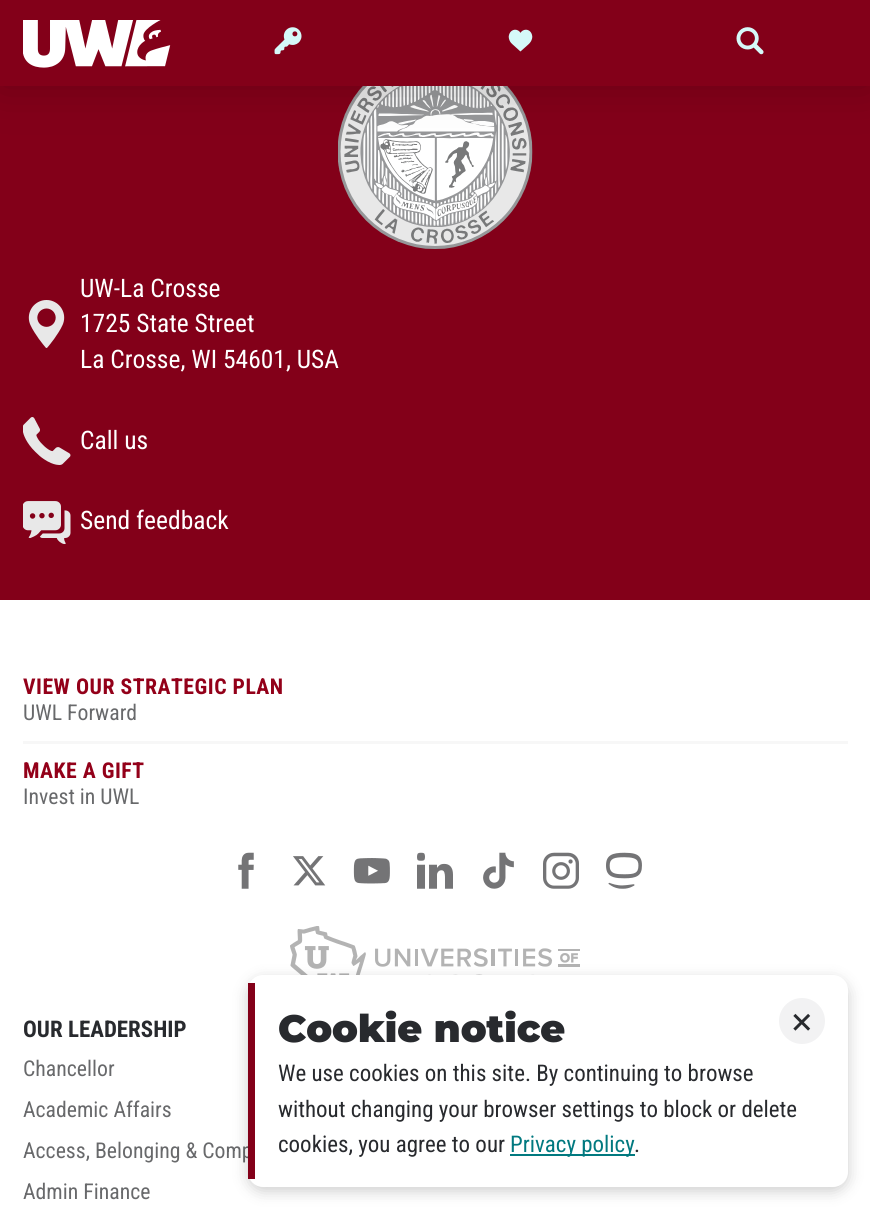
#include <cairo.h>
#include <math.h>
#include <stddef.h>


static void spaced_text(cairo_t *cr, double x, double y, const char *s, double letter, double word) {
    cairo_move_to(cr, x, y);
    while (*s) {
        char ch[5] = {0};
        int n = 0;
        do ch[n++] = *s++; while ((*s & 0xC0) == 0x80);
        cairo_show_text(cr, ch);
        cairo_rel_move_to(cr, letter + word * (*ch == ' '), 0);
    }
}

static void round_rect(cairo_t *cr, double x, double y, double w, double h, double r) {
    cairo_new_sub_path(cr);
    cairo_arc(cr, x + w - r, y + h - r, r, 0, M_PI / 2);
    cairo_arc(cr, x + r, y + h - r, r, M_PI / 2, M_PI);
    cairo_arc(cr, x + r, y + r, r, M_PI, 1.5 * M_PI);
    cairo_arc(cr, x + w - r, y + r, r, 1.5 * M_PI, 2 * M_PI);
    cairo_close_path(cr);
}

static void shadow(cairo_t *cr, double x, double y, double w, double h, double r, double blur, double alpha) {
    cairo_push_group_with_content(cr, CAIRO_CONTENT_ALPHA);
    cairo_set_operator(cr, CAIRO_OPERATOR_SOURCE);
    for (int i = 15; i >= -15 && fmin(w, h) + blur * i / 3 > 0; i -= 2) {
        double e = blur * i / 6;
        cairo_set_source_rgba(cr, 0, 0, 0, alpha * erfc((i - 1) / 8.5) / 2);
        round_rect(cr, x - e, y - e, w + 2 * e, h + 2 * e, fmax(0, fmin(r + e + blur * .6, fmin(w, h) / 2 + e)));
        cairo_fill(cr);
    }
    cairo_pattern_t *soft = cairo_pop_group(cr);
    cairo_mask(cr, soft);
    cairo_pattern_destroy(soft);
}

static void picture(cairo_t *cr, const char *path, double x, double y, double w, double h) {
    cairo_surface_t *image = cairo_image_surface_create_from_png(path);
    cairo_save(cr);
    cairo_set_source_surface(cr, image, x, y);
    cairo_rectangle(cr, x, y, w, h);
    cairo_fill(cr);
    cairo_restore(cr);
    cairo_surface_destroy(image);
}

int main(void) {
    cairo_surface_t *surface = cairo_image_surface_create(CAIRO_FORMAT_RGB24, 870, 1208);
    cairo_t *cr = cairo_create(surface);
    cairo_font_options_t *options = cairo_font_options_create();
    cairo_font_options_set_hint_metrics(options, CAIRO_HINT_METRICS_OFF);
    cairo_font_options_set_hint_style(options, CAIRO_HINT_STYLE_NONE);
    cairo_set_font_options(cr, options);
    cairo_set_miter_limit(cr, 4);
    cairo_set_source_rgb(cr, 1, 1, 1);
    cairo_paint(cr);
    cairo_set_source_rgb(cr, 0.514, 0, 0.098);
    cairo_rectangle(cr, 0, 86, 870, 514);
    cairo_fill(cr);
    picture(cr, "img5.png", 338, 86, 195, 163);
    cairo_set_source_rgb(cr, 0, 0, 0);
    shadow(cr, 0, 0, 870, 86, 0, 22.5, 0.2);
    cairo_set_source_rgb(cr, 0.514, 0, 0.098);
    cairo_rectangle(cr, 0, 0, 870, 86);
    cairo_fill(cr);
    picture(cr, "img1.png", 23, 20, 148, 48);
    picture(cr, "img2.png", 274, 27, 28, 28);
    picture(cr, "img3.png", 508, 29, 25, 23);
    picture(cr, "img4.png", 736, 27, 28, 28);
    cairo_select_font_face(cr, "Roboto Condensed", CAIRO_FONT_SLANT_NORMAL, CAIRO_FONT_WEIGHT_NORMAL);
    cairo_set_font_size(cr, 25.5);
    cairo_set_source_rgb(cr, 1, 1, 1);
    cairo_move_to(cr, 80, 297);
    cairo_show_text(cr, "UW-La Crosse");
    picture(cr, "img6.png", 28, 300, 37, 48);
    cairo_move_to(cr, 80, 332);
    cairo_show_text(cr, "1725 State Street");
    cairo_move_to(cr, 80, 368);
    cairo_show_text(cr, "La Crosse, WI 54601, USA");
    picture(cr, "img7.png", 23, 417, 48, 48);
    cairo_move_to(cr, 80, 449);
    cairo_show_text(cr, "Call us");
    picture(cr, "img8.png", 23, 501, 48, 43);
    cairo_move_to(cr, 80, 529);
    cairo_show_text(cr, "Send feedback");
    cairo_set_source_rgb(cr, 0.965, 0.965, 0.965);
    cairo_rectangle(cr, 23, 741, 825, 3);
    cairo_fill(cr);
    cairo_select_font_face(cr, "Roboto Condensed", CAIRO_FONT_SLANT_NORMAL, CAIRO_FONT_WEIGHT_BOLD);
    cairo_set_font_size(cr, 21.75);
    cairo_set_source_rgb(cr, 0.576, 0, 0.098);
    spaced_text(cr, 23, 694, "VIEW OUR STRATEGIC PLAN", 0.5, 0);
    cairo_select_font_face(cr, "Roboto Condensed", CAIRO_FONT_SLANT_NORMAL, CAIRO_FONT_WEIGHT_NORMAL);
    cairo_set_source_rgb(cr, 0.408, 0.412, 0.42);
    cairo_move_to(cr, 23, 720);
    cairo_show_text(cr, "UWL Forward");
    cairo_select_font_face(cr, "Roboto Condensed", CAIRO_FONT_SLANT_NORMAL, CAIRO_FONT_WEIGHT_BOLD);
    cairo_set_source_rgb(cr, 0.576, 0, 0.098);
    spaced_text(cr, 23, 778, "MAKE A GIFT", 0.5, 0);
    cairo_select_font_face(cr, "Roboto Condensed", CAIRO_FONT_SLANT_NORMAL, CAIRO_FONT_WEIGHT_NORMAL);
    cairo_set_source_rgb(cr, 0.408, 0.412, 0.42);
    cairo_move_to(cr, 23, 804);
    cairo_show_text(cr, "Invest in UWL");
    picture(cr, "img9.png", 238, 852, 16, 37);
    picture(cr, "img10.png", 293, 856, 33, 30);
    picture(cr, "img11.png", 353, 858, 37, 26);
    picture(cr, "img12.png", 417, 852, 36, 37);
    picture(cr, "img13.png", 483, 852, 31, 37);
    picture(cr, "img14.png", 543, 852, 36, 37);
    picture(cr, "img15.png", 606, 852, 36, 37);
    picture(cr, "img16.png", 290, 926, 290, 49);
    cairo_select_font_face(cr, "Roboto Condensed", CAIRO_FONT_SLANT_NORMAL, CAIRO_FONT_WEIGHT_BOLD);
    cairo_set_font_size(cr, 22.95);
    cairo_set_source_rgb(cr, 0.157, 0.165, 0.18);
    cairo_move_to(cr, 23, 1037);
    cairo_show_text(cr, "OUR LEADERSHIP");
    cairo_select_font_face(cr, "Roboto Condensed", CAIRO_FONT_SLANT_NORMAL, CAIRO_FONT_WEIGHT_NORMAL);
    cairo_set_font_size(cr, 21.75);
    cairo_set_source_rgb(cr, 0.408, 0.412, 0.42);
    cairo_move_to(cr, 23, 1076);
    cairo_show_text(cr, "Chancellor");
    cairo_move_to(cr, 23, 1117);
    cairo_show_text(cr, "Academic Affairs");
    cairo_move_to(cr, 23, 1158);
    cairo_show_text(cr, "Access, Belonging & Comp");
    cairo_move_to(cr, 23, 1199);
    cairo_show_text(cr, "Admin Finance");
    cairo_set_source_rgb(cr, 0, 0, 0);
    shadow(cr, 248, 980, 600, 211, 15, 7.5, 0.2);
    cairo_set_source_rgb(cr, 1, 1, 1);
    round_rect(cr, 248, 975, 600, 212, 15);
    cairo_fill(cr);
    cairo_set_source_rgb(cr, 0.514, 0, 0.098);
    cairo_rectangle(cr, 248, 983, 7, 196);
    cairo_fill(cr);
    cairo_select_font_face(cr, "Montserrat Black", CAIRO_FONT_SLANT_NORMAL, CAIRO_FONT_WEIGHT_NORMAL);
    cairo_set_font_size(cr, 38.25);
    cairo_set_source_rgb(cr, 0.157, 0.165, 0.18);
    cairo_move_to(cr, 278, 1042);
    cairo_show_text(cr, "Cookie notice");
    cairo_set_source_rgb(cr, 0.949, 0.949, 0.953);
    cairo_new_path(cr);
    cairo_arc(cr, 802, 1021, 23, 0, 2 * M_PI);
    cairo_fill(cr);
    picture(cr, "img17.png", 793, 1013, 18, 18);
    cairo_select_font_face(cr, "Roboto Condensed", CAIRO_FONT_SLANT_NORMAL, CAIRO_FONT_WEIGHT_NORMAL);
    cairo_set_font_size(cr, 22.95);
    cairo_set_source_rgb(cr, 0.157, 0.165, 0.18);
    cairo_move_to(cr, 278, 1081);
    cairo_show_text(cr, "We use cookies on this site. By continuing to browse");
    cairo_move_to(cr, 278, 1117);
    cairo_show_text(cr, "without changing your browser settings to block or delete");
    cairo_move_to(cr, 278, 1152);
    cairo_show_text(cr, "cookies, you agree to our");
    cairo_set_source_rgb(cr, 0.004, 0.475, 0.498);
    cairo_rectangle(cr, 510, 1154, 125, 2);
    cairo_fill(cr);
    cairo_move_to(cr, 510, 1152);
    cairo_show_text(cr, "Privacy policy");
    cairo_set_source_rgb(cr, 0.157, 0.165, 0.18);
    cairo_move_to(cr, 634, 1152);
    cairo_show_text(cr, ".");
    cairo_surface_write_to_png(surface, "page.png");
    cairo_font_options_destroy(options);
    cairo_destroy(cr);
    cairo_surface_destroy(surface);
    return 0;
}
